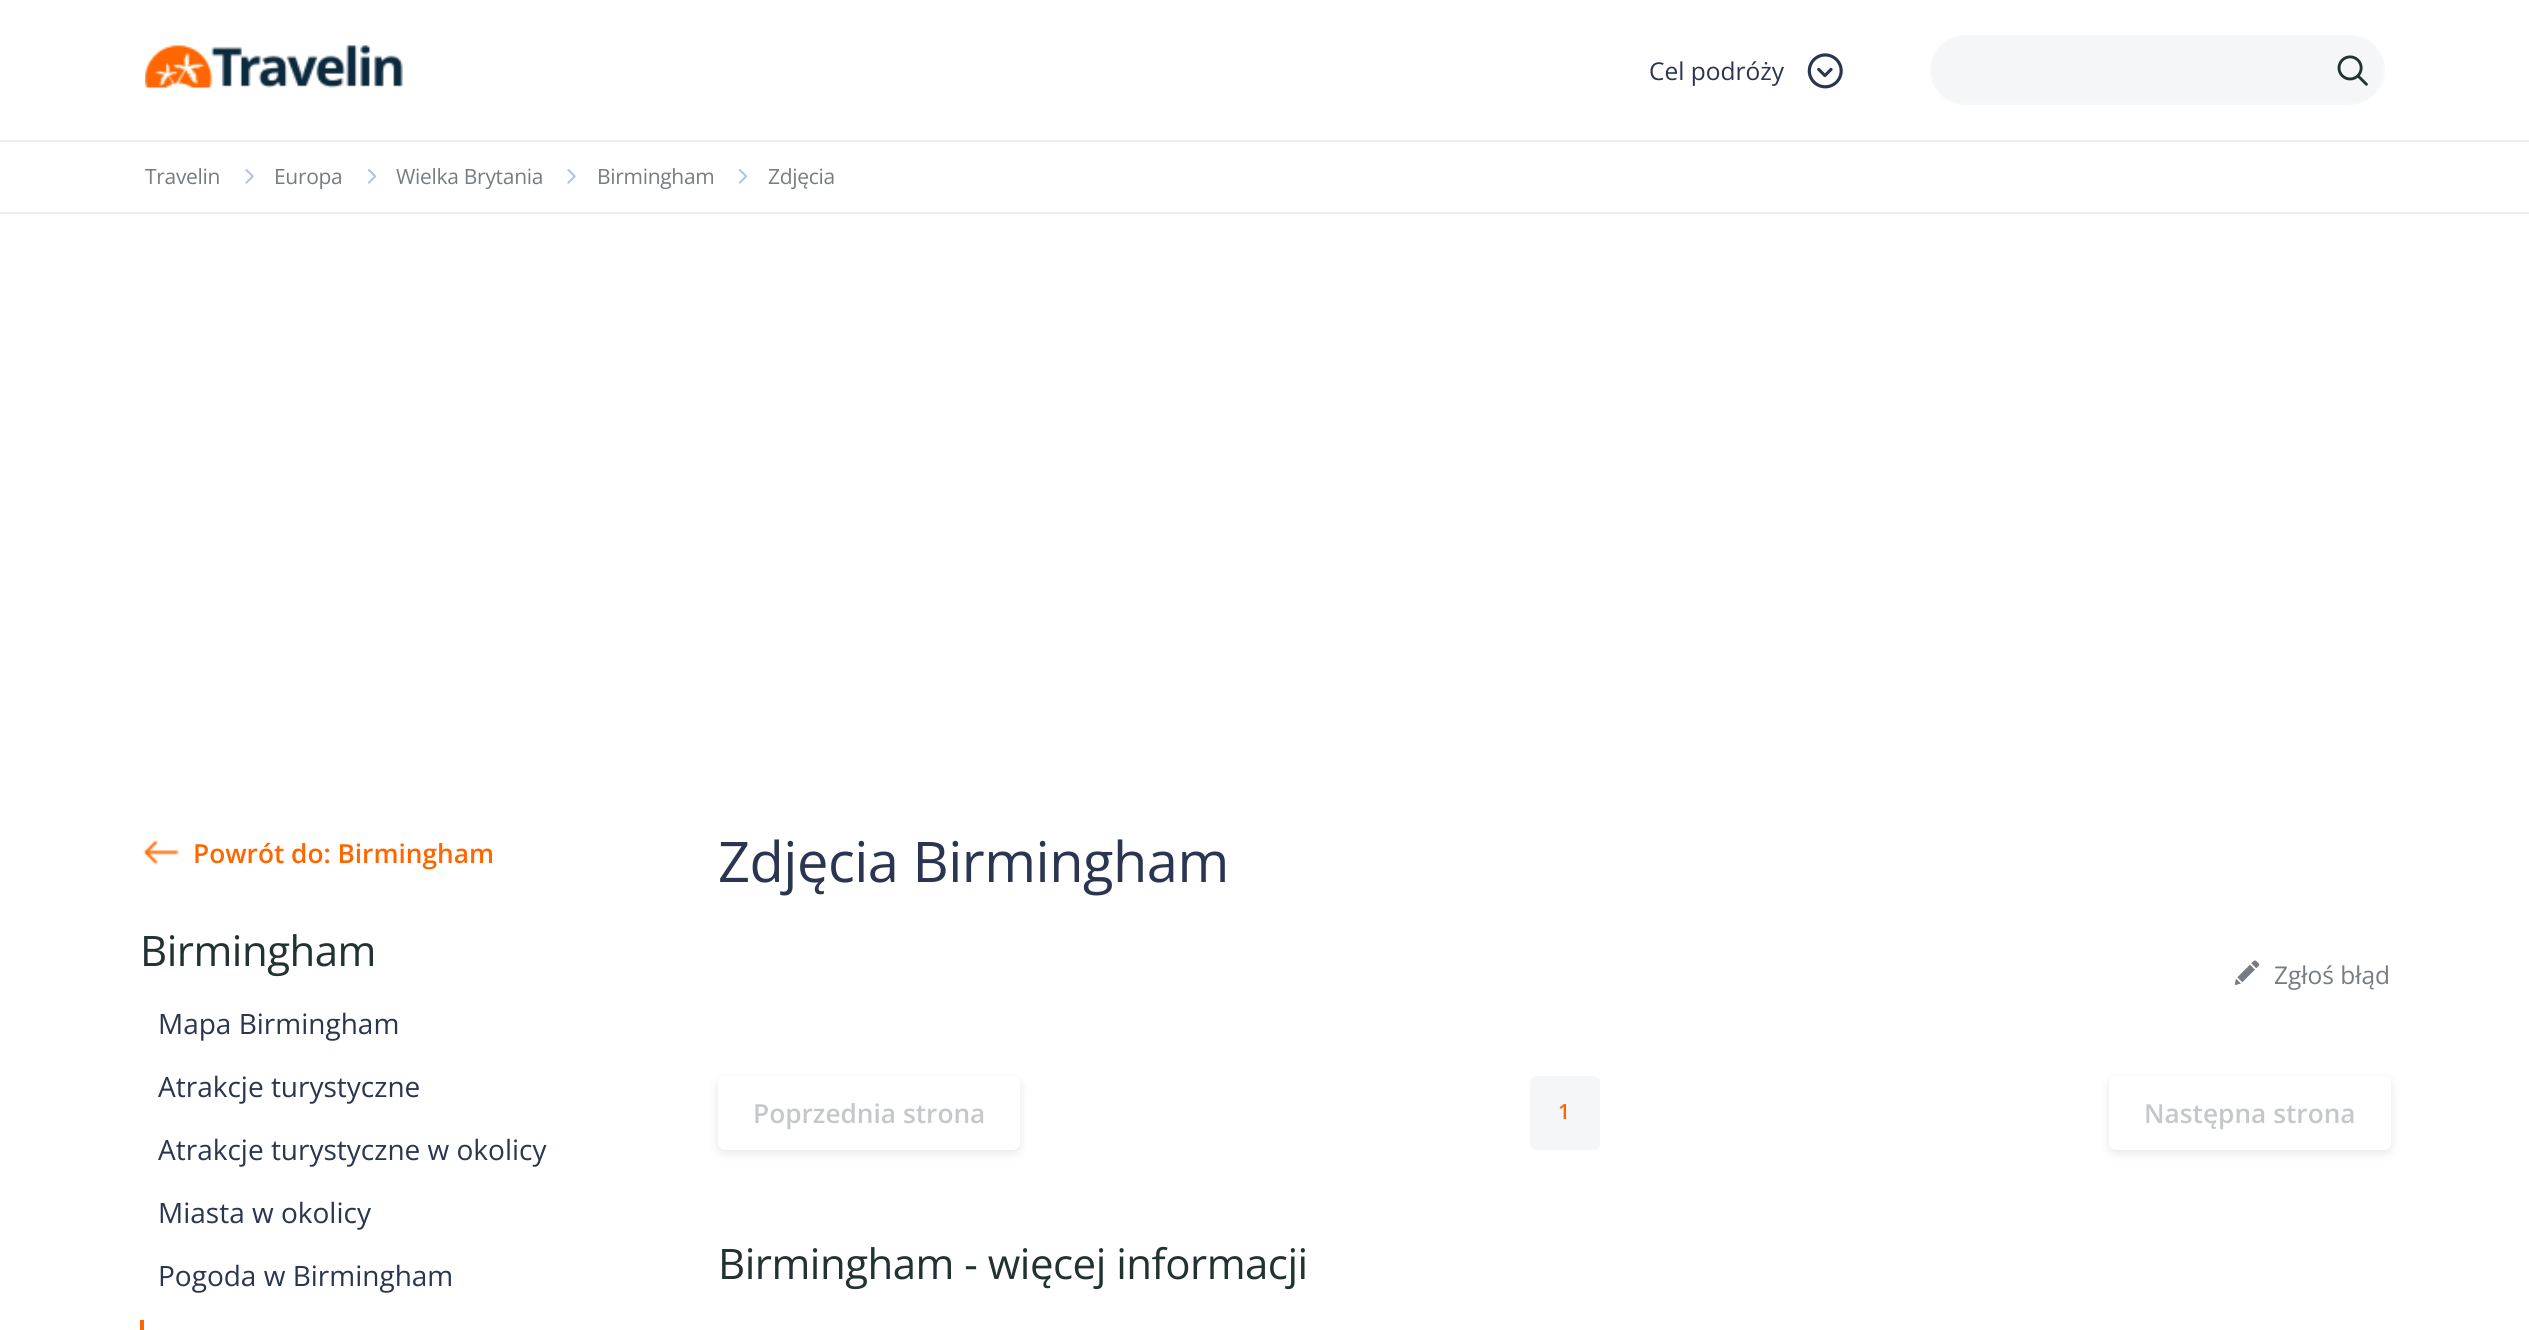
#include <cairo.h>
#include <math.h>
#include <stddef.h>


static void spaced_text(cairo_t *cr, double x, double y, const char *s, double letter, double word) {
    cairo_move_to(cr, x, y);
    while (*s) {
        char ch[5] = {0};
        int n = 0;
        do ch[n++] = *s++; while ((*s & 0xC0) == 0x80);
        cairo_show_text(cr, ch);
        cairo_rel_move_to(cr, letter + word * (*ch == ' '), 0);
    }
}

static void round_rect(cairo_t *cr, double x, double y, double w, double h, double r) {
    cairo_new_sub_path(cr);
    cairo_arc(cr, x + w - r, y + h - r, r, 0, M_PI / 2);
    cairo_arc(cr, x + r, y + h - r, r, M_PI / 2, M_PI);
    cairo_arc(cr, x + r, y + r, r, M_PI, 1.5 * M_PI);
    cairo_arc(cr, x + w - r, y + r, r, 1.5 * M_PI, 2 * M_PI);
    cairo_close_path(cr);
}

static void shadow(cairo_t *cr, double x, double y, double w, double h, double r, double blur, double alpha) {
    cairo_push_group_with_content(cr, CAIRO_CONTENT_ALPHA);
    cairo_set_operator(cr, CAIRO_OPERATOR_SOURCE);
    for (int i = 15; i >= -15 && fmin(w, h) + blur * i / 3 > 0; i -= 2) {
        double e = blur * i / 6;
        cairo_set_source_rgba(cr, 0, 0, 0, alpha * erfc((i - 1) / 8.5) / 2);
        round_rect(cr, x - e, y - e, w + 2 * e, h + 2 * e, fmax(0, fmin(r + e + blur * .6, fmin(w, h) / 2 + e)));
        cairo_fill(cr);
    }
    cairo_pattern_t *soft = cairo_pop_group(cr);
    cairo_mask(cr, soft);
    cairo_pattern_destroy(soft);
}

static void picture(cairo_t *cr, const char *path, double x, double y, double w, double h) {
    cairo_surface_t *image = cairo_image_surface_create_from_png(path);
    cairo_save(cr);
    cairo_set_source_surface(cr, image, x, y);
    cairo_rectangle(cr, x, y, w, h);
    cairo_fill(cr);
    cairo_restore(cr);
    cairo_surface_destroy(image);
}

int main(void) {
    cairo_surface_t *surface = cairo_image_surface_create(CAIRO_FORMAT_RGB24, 2529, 1330);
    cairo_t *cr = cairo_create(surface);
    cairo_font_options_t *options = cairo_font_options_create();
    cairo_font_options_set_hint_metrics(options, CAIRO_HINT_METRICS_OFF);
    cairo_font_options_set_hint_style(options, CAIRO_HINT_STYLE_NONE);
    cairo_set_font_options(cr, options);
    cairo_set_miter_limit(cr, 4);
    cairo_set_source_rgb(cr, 1, 1, 1);
    cairo_paint(cr);
    cairo_set_source_rgb(cr, 0.933, 0.933, 0.933);
    cairo_rectangle(cr, 0, 140, 2529, 2);
    cairo_fill(cr);
    picture(cr, "img1.png", 145, 45, 258, 43);
    cairo_select_font_face(cr, "Open Sans", CAIRO_FONT_SLANT_NORMAL, CAIRO_FONT_WEIGHT_NORMAL);
    cairo_set_font_size(cr, 24.5);
    cairo_set_source_rgb(cr, 0.169, 0.208, 0.322);
    cairo_move_to(cr, 1649, 80);
    cairo_show_text(cr, "Cel podróży");
    picture(cr, "img2.png", 1807, 53, 36, 36);
    cairo_set_source_rgb(cr, 0.957, 0.961, 0.965);
    round_rect(cr, 1930, 35, 455, 70, 35);
    cairo_fill(cr);
    round_rect(cr, 1931, 36, 453, 68, 34);
    cairo_set_source_rgba(cr, 1, 1, 1, 0.3);
    cairo_stroke(cr);
    picture(cr, "img3.png", 2337, 55, 31, 31);
    cairo_set_source_rgb(cr, 0.933, 0.933, 0.933);
    cairo_rectangle(cr, 0, 212, 2529, 2);
    cairo_fill(cr);
    cairo_set_font_size(cr, 21);
    cairo_set_source_rgb(cr, 0.463, 0.486, 0.51);
    spaced_text(cr, 145, 184, "Travelin", -0.3, 0);
    picture(cr, "img4.png", 245, 169, 9, 15);
    spaced_text(cr, 274, 184, "Europa", -0.3, 0);
    picture(cr, "img5.png", 367, 169, 10, 15);
    spaced_text(cr, 396, 184, "Wielka Brytania", -0.3, 0);
    picture(cr, "img4.png", 567, 169, 9, 15);
    spaced_text(cr, 597, 184, "Birmingham", -0.3, 0);
    picture(cr, "img5.png", 738, 169, 10, 15);
    spaced_text(cr, 768, 184, "Zdjęcia", -0.3, 0);
    picture(cr, "img6.png", 143, 839, 36, 26);
    cairo_select_font_face(cr, "Open Sans SemiBold", CAIRO_FONT_SLANT_NORMAL, CAIRO_FONT_WEIGHT_NORMAL);
    cairo_set_font_size(cr, 26.25);
    cairo_set_source_rgb(cr, 1, 0.4, 0);
    cairo_move_to(cr, 193, 863);
    cairo_show_text(cr, "Powrót do: Birmingham");
    cairo_select_font_face(cr, "Open Sans", CAIRO_FONT_SLANT_NORMAL, CAIRO_FONT_WEIGHT_NORMAL);
    cairo_set_font_size(cr, 42);
    cairo_set_source_rgb(cr, 0.133, 0.196, 0.196);
    spaced_text(cr, 140, 966, "Birmingham", -0.5, 0);
    cairo_set_font_size(cr, 28);
    cairo_set_source_rgb(cr, 0.169, 0.208, 0.322);
    cairo_move_to(cr, 158, 1034);
    cairo_show_text(cr, "Mapa Birmingham");
    cairo_move_to(cr, 158, 1097);
    cairo_show_text(cr, "Atrakcje turystyczne");
    cairo_move_to(cr, 158, 1160);
    cairo_show_text(cr, "Atrakcje turystyczne w okolicy");
    cairo_move_to(cr, 158, 1223);
    cairo_show_text(cr, "Miasta w okolicy");
    cairo_move_to(cr, 158, 1286);
    cairo_show_text(cr, "Pogoda w Birmingham");
    cairo_set_source_rgb(cr, 1, 0.4, 0);
    cairo_rectangle(cr, 140, 1320, 4, 10);
    cairo_fill(cr);
    cairo_set_font_size(cr, 56);
    cairo_set_source_rgb(cr, 0.169, 0.208, 0.322);
    spaced_text(cr, 718, 882, "Zdjęcia Birmingham", -0.5, 0);
    picture(cr, "img7.png", 2234, 960, 26, 25);
    cairo_set_font_size(cr, 24.5);
    cairo_set_source_rgb(cr, 0.463, 0.486, 0.51);
    cairo_move_to(cr, 2274, 984);
    cairo_show_text(cr, "Zgłoś błąd");
    cairo_set_source_rgb(cr, 0, 0, 0);
    shadow(cr, 718, 1080, 302, 73, 7, 5, 0.1);
    cairo_set_source_rgb(cr, 1, 1, 1);
    round_rect(cr, 718, 1076, 302, 74, 7);
    cairo_fill(cr);
    cairo_select_font_face(cr, "Open Sans SemiBold", CAIRO_FONT_SLANT_NORMAL, CAIRO_FONT_WEIGHT_NORMAL);
    cairo_set_font_size(cr, 26.25);
    cairo_set_source_rgb(cr, 0.773, 0.784, 0.796);
    cairo_move_to(cr, 753, 1123);
    cairo_show_text(cr, "Poprzednia strona");
    cairo_set_source_rgb(cr, 0.957, 0.961, 0.965);
    round_rect(cr, 1530, 1076, 70, 74, 7);
    cairo_fill(cr);
    cairo_set_font_size(cr, 21);
    cairo_set_source_rgb(cr, 1, 0.4, 0);
    cairo_move_to(cr, 1558, 1119);
    cairo_show_text(cr, "1");
    cairo_set_source_rgb(cr, 0, 0, 0);
    shadow(cr, 2109, 1080, 282, 73, 7, 5, 0.1);
    cairo_set_source_rgb(cr, 1, 1, 1);
    round_rect(cr, 2109, 1076, 282, 74, 7);
    cairo_fill(cr);
    cairo_set_font_size(cr, 26.25);
    cairo_set_source_rgb(cr, 0.773, 0.784, 0.796);
    cairo_move_to(cr, 2144, 1123);
    cairo_show_text(cr, "Następna strona");
    cairo_select_font_face(cr, "Open Sans", CAIRO_FONT_SLANT_NORMAL, CAIRO_FONT_WEIGHT_NORMAL);
    cairo_set_font_size(cr, 42);
    cairo_set_source_rgb(cr, 0.133, 0.196, 0.196);
    spaced_text(cr, 718, 1279, "Birmingham - więcej informacji", -0.5, 0);
    cairo_surface_write_to_png(surface, "page.png");
    cairo_font_options_destroy(options);
    cairo_destroy(cr);
    cairo_surface_destroy(surface);
    return 0;
}
